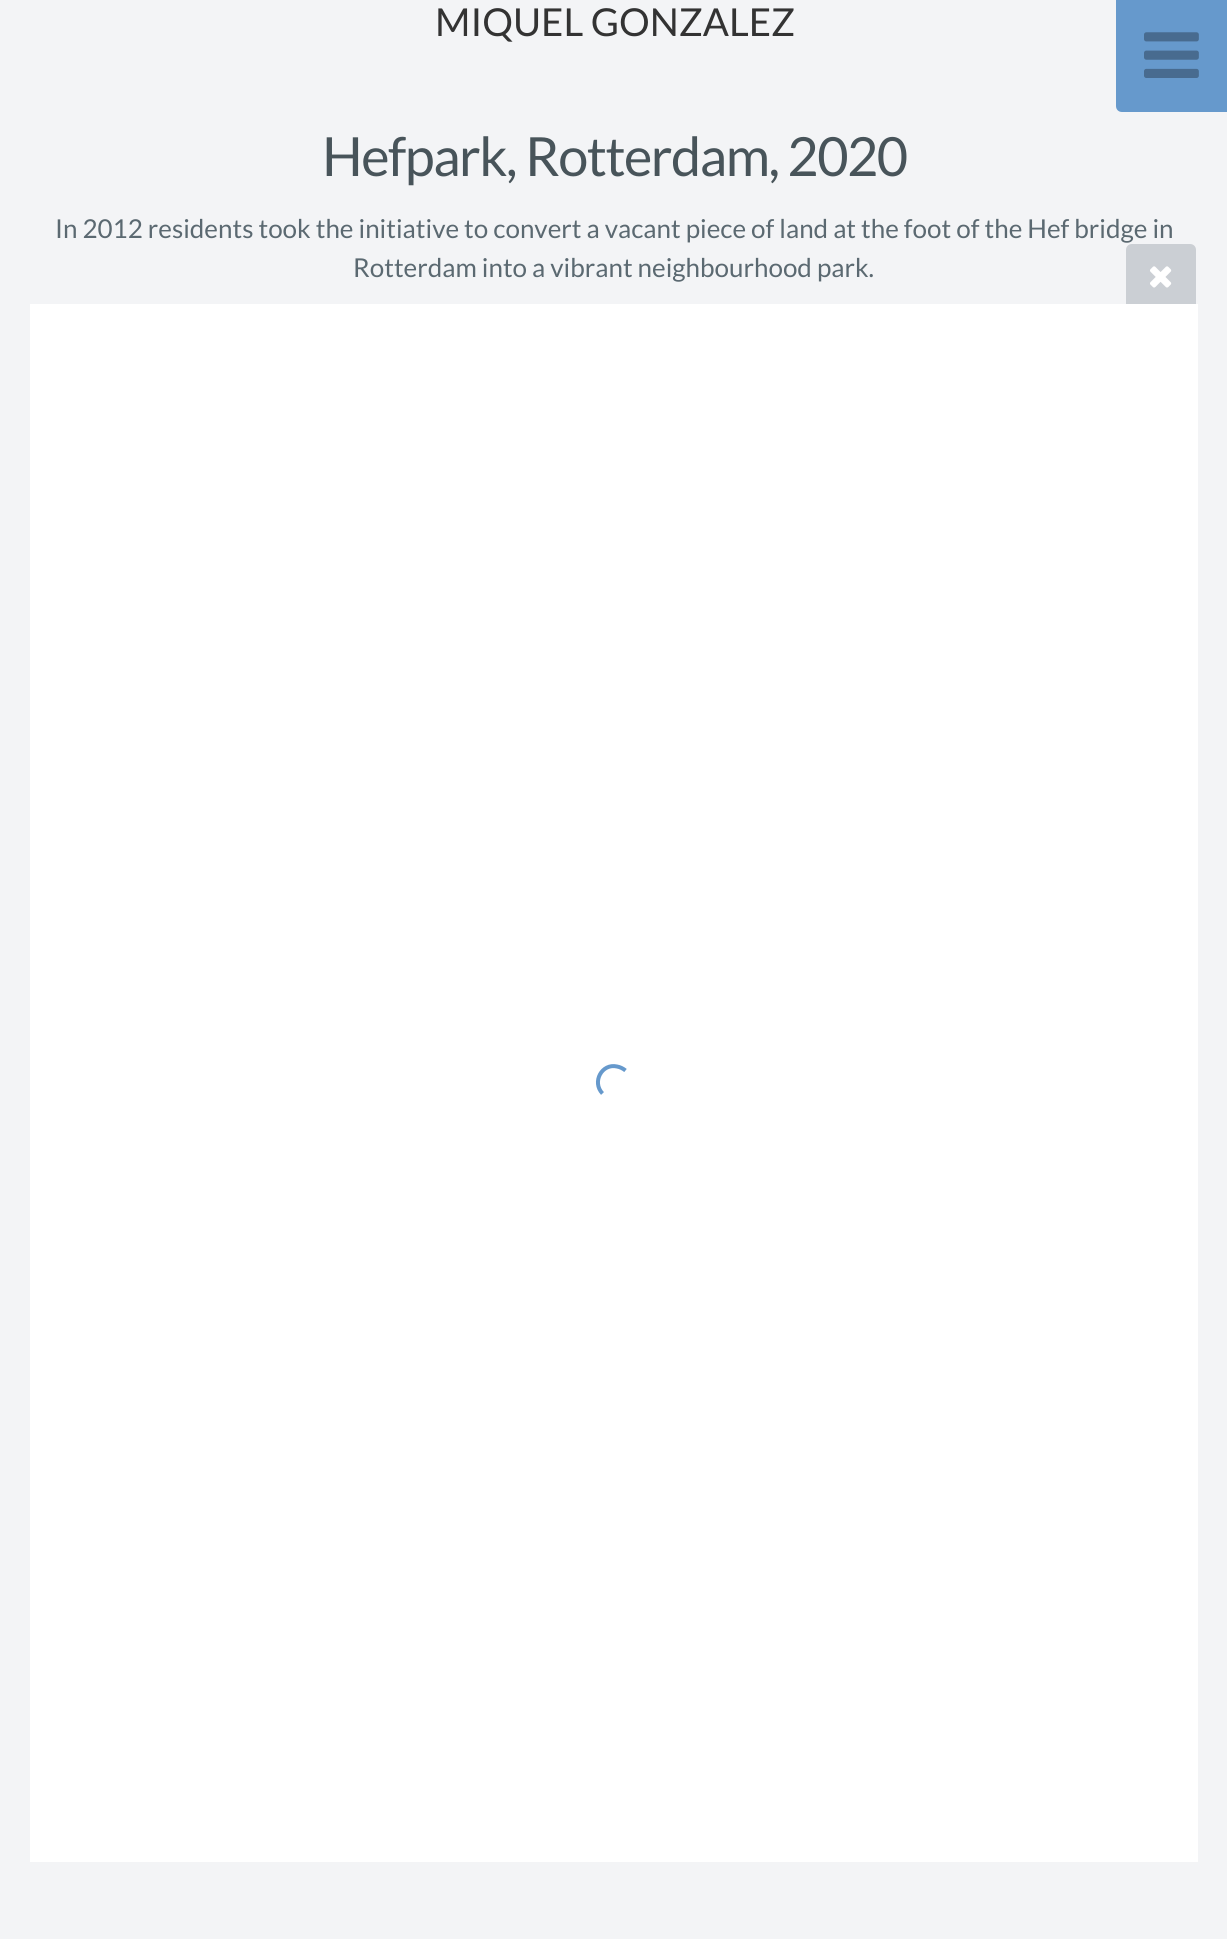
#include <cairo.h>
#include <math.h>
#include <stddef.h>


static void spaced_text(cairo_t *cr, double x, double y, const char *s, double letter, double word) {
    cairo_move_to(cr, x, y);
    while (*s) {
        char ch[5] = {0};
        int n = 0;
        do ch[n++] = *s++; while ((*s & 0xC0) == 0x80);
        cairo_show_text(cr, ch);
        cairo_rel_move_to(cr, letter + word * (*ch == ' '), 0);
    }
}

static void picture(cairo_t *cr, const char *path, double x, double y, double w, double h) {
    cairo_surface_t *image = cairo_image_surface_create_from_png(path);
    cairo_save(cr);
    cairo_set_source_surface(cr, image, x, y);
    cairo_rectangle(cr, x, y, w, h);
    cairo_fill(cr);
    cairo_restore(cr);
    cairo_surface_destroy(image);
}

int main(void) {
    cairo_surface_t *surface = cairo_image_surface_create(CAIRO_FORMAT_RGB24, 1227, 1939);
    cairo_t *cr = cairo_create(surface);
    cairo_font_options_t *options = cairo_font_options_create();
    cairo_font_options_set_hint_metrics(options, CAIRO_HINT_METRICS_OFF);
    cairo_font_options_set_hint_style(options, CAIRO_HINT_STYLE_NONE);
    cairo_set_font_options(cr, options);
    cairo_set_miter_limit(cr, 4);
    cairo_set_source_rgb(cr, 0.953, 0.957, 0.961);
    cairo_paint(cr);
    cairo_set_source_rgb(cr, 0.4, 0.6, 0.8);
    cairo_new_path(cr);
    cairo_move_to(cr, 1116, 0);
    cairo_line_to(cr, 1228, 0);
    cairo_line_to(cr, 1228, 112);
    cairo_line_to(cr, 1122, 112);
    cairo_curve_to(cr, 1118.5, 112, 1116, 109.5, 1116, 106);
    cairo_close_path(cr);
    cairo_fill(cr);
    picture(cr, "img1.png", 1144, 32, 55, 46);
    cairo_select_font_face(cr, "Lato", CAIRO_FONT_SLANT_NORMAL, CAIRO_FONT_WEIGHT_NORMAL);
    cairo_set_font_size(cr, 38.5);
    cairo_set_source_rgb(cr, 0.2, 0.2, 0.2);
    cairo_move_to(cr, 435, 36);
    cairo_show_text(cr, "MIQUEL GONZALEZ");
    cairo_set_font_size(cr, 54);
    cairo_set_source_rgb(cr, 0.282, 0.329, 0.353);
    spaced_text(cr, 322, 176, "Hefpark, Rotterdam, 2020", -1.5, 0);
    cairo_set_font_size(cr, 26);
    cairo_set_source_rgb(cr, 0.357, 0.412, 0.443);
    cairo_move_to(cr, 55, 238);
    cairo_show_text(cr, "In 2012 residents took the initiative to convert a vacant piece of land at the foot of the Hef bridge in");
    cairo_move_to(cr, 353, 277);
    cairo_show_text(cr, "Rotterdam into a vibrant neighbourhood park.");
    cairo_set_source_rgb(cr, 0.796, 0.812, 0.831);
    cairo_new_path(cr);
    cairo_move_to(cr, 1132, 244);
    cairo_line_to(cr, 1190, 244);
    cairo_curve_to(cr, 1193.5, 244, 1196, 246.5, 1196, 250);
    cairo_line_to(cr, 1196, 304);
    cairo_line_to(cr, 1126, 304);
    cairo_line_to(cr, 1126, 250);
    cairo_curve_to(cr, 1126, 246.5, 1128.5, 244, 1132, 244);
    cairo_close_path(cr);
    cairo_fill(cr);
    picture(cr, "img2.png", 1150, 266, 22, 22);
    cairo_set_source_rgb(cr, 1, 1, 1);
    cairo_rectangle(cr, 30, 304, 1168, 1558);
    cairo_fill(cr);
    cairo_new_path(cr);
    cairo_move_to(cr, 602.5, 1093.5);
    cairo_curve_to(cr, 591.5, 1082, 602, 1063, 617, 1066.5);
    cairo_curve_to(cr, 620, 1067, 623, 1068.5, 625.5, 1070.5);
    cairo_set_source_rgb(cr, 0.4, 0.6, 0.8);
    cairo_set_line_width(cr, 4);
    cairo_stroke(cr);
    cairo_surface_write_to_png(surface, "page.png");
    cairo_font_options_destroy(options);
    cairo_destroy(cr);
    cairo_surface_destroy(surface);
    return 0;
}
